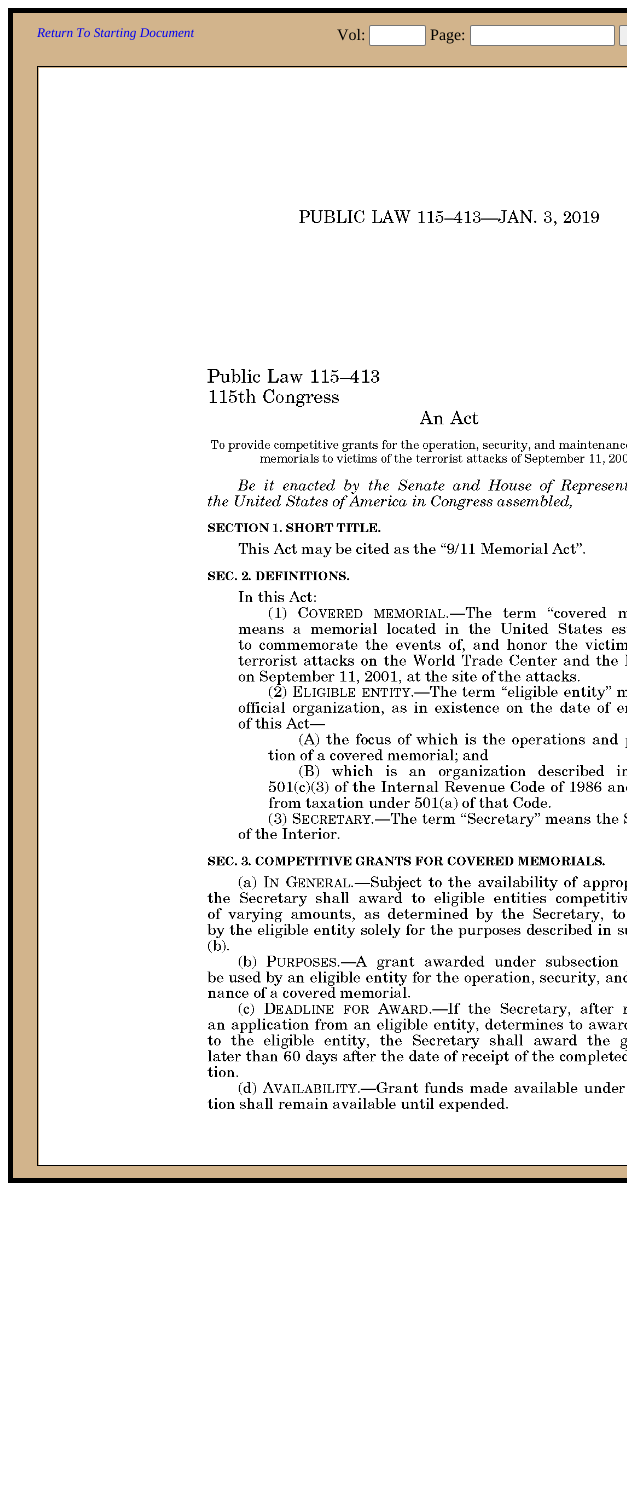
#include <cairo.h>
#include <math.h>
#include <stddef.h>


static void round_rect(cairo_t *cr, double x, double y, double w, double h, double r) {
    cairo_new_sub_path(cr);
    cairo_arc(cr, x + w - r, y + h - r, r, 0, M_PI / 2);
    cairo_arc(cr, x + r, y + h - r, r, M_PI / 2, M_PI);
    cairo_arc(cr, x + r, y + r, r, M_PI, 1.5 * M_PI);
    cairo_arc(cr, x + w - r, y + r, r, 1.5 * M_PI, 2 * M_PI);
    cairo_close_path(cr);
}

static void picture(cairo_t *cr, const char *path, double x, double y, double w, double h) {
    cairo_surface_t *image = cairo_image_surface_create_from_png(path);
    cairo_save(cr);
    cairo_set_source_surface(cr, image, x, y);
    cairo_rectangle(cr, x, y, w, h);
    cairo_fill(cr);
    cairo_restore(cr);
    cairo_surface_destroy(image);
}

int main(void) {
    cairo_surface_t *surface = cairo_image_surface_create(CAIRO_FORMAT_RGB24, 627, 1494);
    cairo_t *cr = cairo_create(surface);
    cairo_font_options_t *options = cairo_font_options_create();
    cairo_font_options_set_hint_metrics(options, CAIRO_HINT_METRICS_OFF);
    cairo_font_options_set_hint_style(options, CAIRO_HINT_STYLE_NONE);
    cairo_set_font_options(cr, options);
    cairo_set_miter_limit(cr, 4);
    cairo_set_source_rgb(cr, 1, 1, 1);
    cairo_paint(cr);
    cairo_set_source_rgb(cr, 0.824, 0.706, 0.549);
    cairo_rectangle(cr, 10.5, 10.5, 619, 1170);
    cairo_fill_preserve(cr);
    cairo_set_source_rgb(cr, 0, 0, 0);
    cairo_set_line_width(cr, 5);
    cairo_stroke(cr);
    cairo_select_font_face(cr, "Liberation Serif", CAIRO_FONT_SLANT_ITALIC, CAIRO_FONT_WEIGHT_NORMAL);
    cairo_set_font_size(cr, 13.25);
    cairo_set_source_rgb(cr, 0, 0, 0.933);
    cairo_move_to(cr, 37, 37);
    cairo_show_text(cr, "Return To Starting Document");
    cairo_select_font_face(cr, "Liberation Serif", CAIRO_FONT_SLANT_NORMAL, CAIRO_FONT_WEIGHT_NORMAL);
    cairo_set_font_size(cr, 16);
    cairo_set_source_rgb(cr, 0, 0, 0);
    cairo_move_to(cr, 337, 40);
    cairo_show_text(cr, "Vol:");
    cairo_set_source_rgb(cr, 1, 1, 1);
    round_rect(cr, 369.5, 25.5, 56, 20, 1.5);
    cairo_fill_preserve(cr);
    cairo_set_source_rgb(cr, 0.463, 0.463, 0.463);
    cairo_set_line_width(cr, 1);
    cairo_stroke(cr);
    cairo_set_source_rgb(cr, 0, 0, 0);
    cairo_move_to(cr, 430, 40);
    cairo_show_text(cr, "Page:");
    cairo_set_source_rgb(cr, 1, 1, 1);
    round_rect(cr, 470.5, 25.5, 144, 20, 1.5);
    cairo_fill_preserve(cr);
    cairo_set_source_rgb(cr, 0.463, 0.463, 0.463);
    cairo_stroke(cr);
    cairo_set_source_rgb(cr, 0.937, 0.937, 0.937);
    round_rect(cr, 619.5, 25.5, 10, 20, 1.5);
    cairo_fill_preserve(cr);
    cairo_set_source_rgb(cr, 0.463, 0.463, 0.463);
    cairo_stroke(cr);
    cairo_rectangle(cr, 37.5, 66.5, 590, 1099);
    cairo_set_source_rgb(cr, 0, 0, 0);
    cairo_stroke(cr);
    picture(cr, "img1.png", 39, 68, 588, 1097);
    cairo_surface_write_to_png(surface, "page.png");
    cairo_font_options_destroy(options);
    cairo_destroy(cr);
    cairo_surface_destroy(surface);
    return 0;
}
